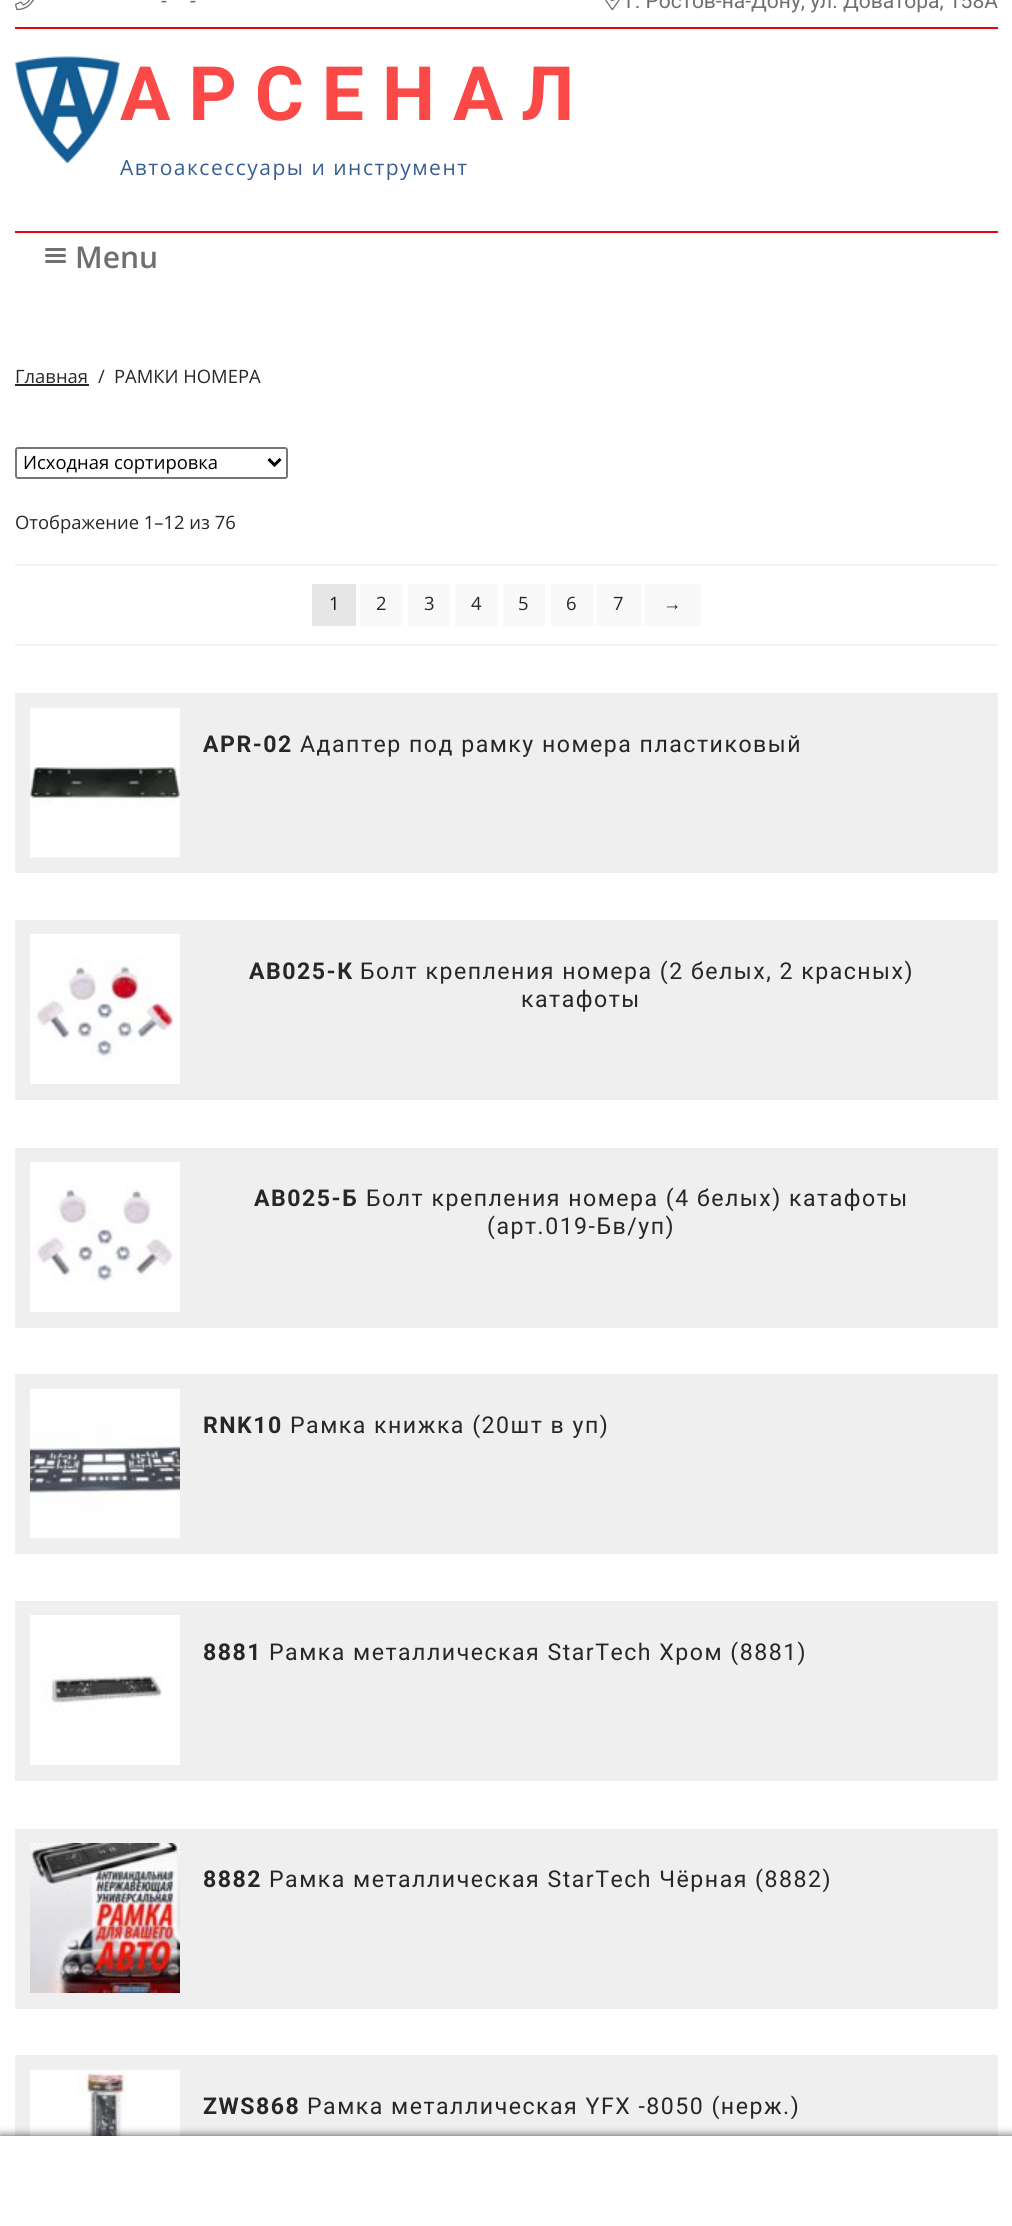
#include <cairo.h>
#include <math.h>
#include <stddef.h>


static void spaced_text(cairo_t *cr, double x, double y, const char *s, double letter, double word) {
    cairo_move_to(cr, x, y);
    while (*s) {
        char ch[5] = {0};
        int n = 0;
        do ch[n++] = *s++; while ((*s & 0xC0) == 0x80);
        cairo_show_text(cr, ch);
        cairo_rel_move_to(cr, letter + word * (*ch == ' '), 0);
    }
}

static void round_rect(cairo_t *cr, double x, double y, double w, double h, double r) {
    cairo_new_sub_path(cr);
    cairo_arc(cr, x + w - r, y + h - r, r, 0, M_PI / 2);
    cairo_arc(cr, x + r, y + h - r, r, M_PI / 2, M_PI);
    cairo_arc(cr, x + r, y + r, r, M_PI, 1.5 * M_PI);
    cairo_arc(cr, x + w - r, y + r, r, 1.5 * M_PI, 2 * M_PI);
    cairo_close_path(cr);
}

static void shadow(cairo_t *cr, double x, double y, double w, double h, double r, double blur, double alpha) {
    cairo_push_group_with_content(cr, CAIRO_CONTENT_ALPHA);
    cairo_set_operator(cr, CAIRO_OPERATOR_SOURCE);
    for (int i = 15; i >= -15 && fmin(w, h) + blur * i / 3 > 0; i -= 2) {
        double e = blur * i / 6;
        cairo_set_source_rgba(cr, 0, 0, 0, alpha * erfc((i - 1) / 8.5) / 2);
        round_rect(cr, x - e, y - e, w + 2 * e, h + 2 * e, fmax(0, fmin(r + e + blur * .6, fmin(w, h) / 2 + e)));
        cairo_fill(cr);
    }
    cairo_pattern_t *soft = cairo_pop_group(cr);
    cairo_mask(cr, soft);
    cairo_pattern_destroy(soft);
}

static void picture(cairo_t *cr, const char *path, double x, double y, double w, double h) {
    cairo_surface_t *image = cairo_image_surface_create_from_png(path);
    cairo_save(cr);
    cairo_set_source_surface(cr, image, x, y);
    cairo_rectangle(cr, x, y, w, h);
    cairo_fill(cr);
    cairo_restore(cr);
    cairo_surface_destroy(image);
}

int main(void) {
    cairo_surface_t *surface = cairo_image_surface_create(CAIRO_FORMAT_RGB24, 1012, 2226);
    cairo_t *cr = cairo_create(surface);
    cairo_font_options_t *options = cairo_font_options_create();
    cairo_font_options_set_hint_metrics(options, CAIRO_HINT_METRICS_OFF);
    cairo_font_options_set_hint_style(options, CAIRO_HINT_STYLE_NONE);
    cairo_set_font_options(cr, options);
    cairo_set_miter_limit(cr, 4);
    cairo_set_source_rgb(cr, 1, 1, 1);
    cairo_paint(cr);
    cairo_set_source_rgb(cr, 0.89, 0.024, 0.075);
    cairo_rectangle(cr, 15, 27, 983, 2);
    cairo_fill(cr);
    picture(cr, "img1.png", 15, 0, 19, 11);
    cairo_select_font_face(cr, "Roboto", CAIRO_FONT_SLANT_NORMAL, CAIRO_FONT_WEIGHT_NORMAL);
    cairo_set_font_size(cr, 21);
    cairo_set_source_rgb(cr, 0.439, 0.435, 0.435);
    cairo_move_to(cr, 161, 8);
    cairo_show_text(cr, "-");
    cairo_move_to(cr, 190, 8);
    cairo_show_text(cr, "-");
    picture(cr, "img2.png", 605, 0, 15, 11);
    cairo_move_to(cr, 626, 8);
    cairo_show_text(cr, "г. Ростов-на-Дону, ул. Доватора, 158А");
    picture(cr, "img3.png", 15, 56, 105, 107);
    cairo_select_font_face(cr, "Roboto", CAIRO_FONT_SLANT_NORMAL, CAIRO_FONT_WEIGHT_BOLD);
    cairo_set_font_size(cr, 75);
    cairo_set_source_rgb(cr, 0.98, 0.286, 0.275);
    spaced_text(cr, 120, 120, "АРСЕНАЛ", 18, 0);
    cairo_select_font_face(cr, "Open Sans", CAIRO_FONT_SLANT_NORMAL, CAIRO_FONT_WEIGHT_NORMAL);
    cairo_set_font_size(cr, 21);
    cairo_set_source_rgb(cr, 0.22, 0.369, 0.569);
    spaced_text(cr, 120, 175, "Автоаксессуары и инструмент", 1.5, 0);
    cairo_set_source_rgb(cr, 0.89, 0.024, 0.075);
    cairo_rectangle(cr, 15, 231, 983, 2);
    cairo_fill(cr);
    cairo_set_source_rgb(cr, 0.439, 0.435, 0.435);
    round_rect(cr, 45, 248, 21, 3, 1.5);
    cairo_fill(cr);
    round_rect(cr, 45, 254, 21, 3, 1.5);
    cairo_fill(cr);
    cairo_select_font_face(cr, "Open Sans SemiBold", CAIRO_FONT_SLANT_NORMAL, CAIRO_FONT_WEIGHT_NORMAL);
    cairo_set_font_size(cr, 30);
    cairo_move_to(cr, 75, 268);
    cairo_show_text(cr, "Menu");
    round_rect(cr, 45, 260, 21, 3, 1.5);
    cairo_fill(cr);
    cairo_select_font_face(cr, "Open Sans", CAIRO_FONT_SLANT_NORMAL, CAIRO_FONT_WEIGHT_NORMAL);
    cairo_set_font_size(cr, 18.4);
    cairo_set_source_rgb(cr, 0.153, 0.153, 0.153);
    cairo_move_to(cr, 15, 383);
    cairo_show_text(cr, "Главная");
    cairo_rectangle(cr, 15, 384, 74, 2);
    cairo_fill(cr);
    cairo_move_to(cr, 98, 383);
    cairo_show_text(cr, "/");
    cairo_move_to(cr, 114, 383);
    cairo_show_text(cr, "РАМКИ НОМЕРА");
    round_rect(cr, 16, 448, 271, 30, 2);
    cairo_set_source_rgb(cr, 0.463, 0.463, 0.463);
    cairo_stroke(cr);
    cairo_new_path(cr);
    cairo_move_to(cr, 268.5, 459);
    cairo_line_to(cr, 274.5, 465);
    cairo_line_to(cr, 280.5, 459);
    cairo_set_source_rgb(cr, 0, 0, 0);
    cairo_set_line_width(cr, 3);
    cairo_stroke(cr);
    cairo_move_to(cr, 23, 469);
    cairo_show_text(cr, "Исходная сортировка");
    cairo_set_source_rgb(cr, 0.153, 0.153, 0.153);
    cairo_move_to(cr, 15, 529);
    cairo_show_text(cr, "Отображение 1–12 из 76");
    cairo_set_source_rgb(cr, 0.949, 0.949, 0.949);
    cairo_rectangle(cr, 15, 564, 983, 2);
    cairo_fill(cr);
    cairo_rectangle(cr, 15, 644, 983, 2);
    cairo_fill(cr);
    cairo_set_source_rgb(cr, 0.902, 0.902, 0.902);
    cairo_rectangle(cr, 312, 584, 44, 42);
    cairo_fill(cr);
    cairo_set_source_rgb(cr, 0.094, 0.094, 0.094);
    cairo_move_to(cr, 329, 610);
    cairo_show_text(cr, "1");
    cairo_set_source_rgb(cr, 0.976, 0.976, 0.976);
    cairo_rectangle(cr, 360, 584, 42, 42);
    cairo_fill(cr);
    cairo_set_source_rgb(cr, 0.153, 0.153, 0.153);
    cairo_move_to(cr, 376, 610);
    cairo_show_text(cr, "2");
    cairo_set_source_rgb(cr, 0.976, 0.976, 0.976);
    cairo_rectangle(cr, 408, 584, 42, 42);
    cairo_fill(cr);
    cairo_set_source_rgb(cr, 0.153, 0.153, 0.153);
    cairo_move_to(cr, 424, 610);
    cairo_show_text(cr, "3");
    cairo_set_source_rgb(cr, 0.976, 0.976, 0.976);
    cairo_rectangle(cr, 455, 584, 43, 42);
    cairo_fill(cr);
    cairo_set_source_rgb(cr, 0.153, 0.153, 0.153);
    cairo_move_to(cr, 471, 610);
    cairo_show_text(cr, "4");
    cairo_set_source_rgb(cr, 0.976, 0.976, 0.976);
    cairo_rectangle(cr, 503, 584, 42, 42);
    cairo_fill(cr);
    cairo_set_source_rgb(cr, 0.153, 0.153, 0.153);
    cairo_move_to(cr, 518, 610);
    cairo_show_text(cr, "5");
    cairo_set_source_rgb(cr, 0.976, 0.976, 0.976);
    cairo_rectangle(cr, 551, 584, 42, 42);
    cairo_fill(cr);
    cairo_set_source_rgb(cr, 0.153, 0.153, 0.153);
    cairo_move_to(cr, 566, 610);
    cairo_show_text(cr, "6");
    cairo_set_source_rgb(cr, 0.976, 0.976, 0.976);
    cairo_rectangle(cr, 597, 584, 44, 42);
    cairo_fill(cr);
    cairo_set_source_rgb(cr, 0.153, 0.153, 0.153);
    cairo_move_to(cr, 613, 610);
    cairo_show_text(cr, "7");
    cairo_set_source_rgb(cr, 0.976, 0.976, 0.976);
    cairo_rectangle(cr, 645, 584, 56, 42);
    cairo_fill(cr);
    cairo_select_font_face(cr, "Liberation Sans", CAIRO_FONT_SLANT_NORMAL, CAIRO_FONT_WEIGHT_NORMAL);
    cairo_set_source_rgb(cr, 0.153, 0.153, 0.153);
    cairo_move_to(cr, 663, 610);
    cairo_show_text(cr, "→");
    cairo_set_source_rgb(cr, 0.937, 0.937, 0.937);
    cairo_rectangle(cr, 15, 693, 983, 180);
    cairo_fill(cr);
    picture(cr, "img4.png", 30, 707, 150, 151);
    cairo_select_font_face(cr, "Roboto", CAIRO_FONT_SLANT_NORMAL, CAIRO_FONT_WEIGHT_BOLD);
    cairo_set_font_size(cr, 23.1);
    cairo_set_source_rgb(cr, 0.153, 0.153, 0.153);
    spaced_text(cr, 203, 752, "APR-02", 1.5, 0);
    cairo_select_font_face(cr, "Roboto", CAIRO_FONT_SLANT_NORMAL, CAIRO_FONT_WEIGHT_NORMAL);
    spaced_text(cr, 300, 752, "Адаптер под рамку номера пластиковый", 1.5, 0);
    cairo_set_source_rgb(cr, 0.937, 0.937, 0.937);
    cairo_rectangle(cr, 15, 920, 983, 180);
    cairo_fill(cr);
    picture(cr, "img5.png", 30, 934, 150, 150);
    cairo_select_font_face(cr, "Roboto", CAIRO_FONT_SLANT_NORMAL, CAIRO_FONT_WEIGHT_BOLD);
    cairo_set_source_rgb(cr, 0.153, 0.153, 0.153);
    spaced_text(cr, 249, 979, "AB025-К", 1.5, 0);
    cairo_select_font_face(cr, "Roboto", CAIRO_FONT_SLANT_NORMAL, CAIRO_FONT_WEIGHT_NORMAL);
    spaced_text(cr, 360, 979, "Болт крепления номера (2 белых, 2 красных)", 1.5, 0);
    spaced_text(cr, 521, 1007, "катафоты", 1.5, 0);
    cairo_set_source_rgb(cr, 0.937, 0.937, 0.937);
    cairo_rectangle(cr, 15, 1148, 983, 180);
    cairo_fill(cr);
    picture(cr, "img6.png", 30, 1162, 150, 150);
    cairo_select_font_face(cr, "Roboto", CAIRO_FONT_SLANT_NORMAL, CAIRO_FONT_WEIGHT_BOLD);
    cairo_set_source_rgb(cr, 0.153, 0.153, 0.153);
    spaced_text(cr, 254, 1206, "AB025-Б", 1.5, 0);
    cairo_select_font_face(cr, "Roboto", CAIRO_FONT_SLANT_NORMAL, CAIRO_FONT_WEIGHT_NORMAL);
    spaced_text(cr, 366, 1206, "Болт крепления номера (4 белых) катафоты", 1.5, 0);
    spaced_text(cr, 487, 1234, "(арт.019-Бв/уп)", 1.5, 0);
    cairo_set_source_rgb(cr, 0.937, 0.937, 0.937);
    cairo_rectangle(cr, 15, 1374, 983, 180);
    cairo_fill(cr);
    picture(cr, "img7.png", 30, 1388, 150, 151);
    cairo_select_font_face(cr, "Roboto", CAIRO_FONT_SLANT_NORMAL, CAIRO_FONT_WEIGHT_BOLD);
    cairo_set_source_rgb(cr, 0.153, 0.153, 0.153);
    spaced_text(cr, 203, 1433, "RNK10", 1.5, 0);
    cairo_select_font_face(cr, "Roboto", CAIRO_FONT_SLANT_NORMAL, CAIRO_FONT_WEIGHT_NORMAL);
    spaced_text(cr, 290, 1433, "Рамка книжка (20шт в уп)", 1.5, 0);
    cairo_set_source_rgb(cr, 0.937, 0.937, 0.937);
    cairo_rectangle(cr, 15, 1601, 983, 180);
    cairo_fill(cr);
    picture(cr, "img8.png", 30, 1615, 150, 150);
    cairo_select_font_face(cr, "Roboto", CAIRO_FONT_SLANT_NORMAL, CAIRO_FONT_WEIGHT_BOLD);
    cairo_set_source_rgb(cr, 0.153, 0.153, 0.153);
    spaced_text(cr, 203, 1660, "8881", 1.5, 0);
    cairo_select_font_face(cr, "Roboto", CAIRO_FONT_SLANT_NORMAL, CAIRO_FONT_WEIGHT_NORMAL);
    spaced_text(cr, 269, 1660, "Рамка металлическая StarTech Хром (8881)", 1.5, 0);
    cairo_set_source_rgb(cr, 0.937, 0.937, 0.937);
    cairo_rectangle(cr, 15, 1829, 983, 180);
    cairo_fill(cr);
    picture(cr, "img9.png", 30, 1843, 150, 150);
    cairo_select_font_face(cr, "Roboto", CAIRO_FONT_SLANT_NORMAL, CAIRO_FONT_WEIGHT_BOLD);
    cairo_set_source_rgb(cr, 0.153, 0.153, 0.153);
    spaced_text(cr, 203, 1887, "8882", 1.5, 0);
    cairo_select_font_face(cr, "Roboto", CAIRO_FONT_SLANT_NORMAL, CAIRO_FONT_WEIGHT_NORMAL);
    spaced_text(cr, 269, 1887, "Рамка металлическая StarTech Чёрная (8882)", 1.5, 0);
    cairo_set_source_rgb(cr, 0.937, 0.937, 0.937);
    cairo_rectangle(cr, 15, 2055, 983, 81);
    cairo_fill(cr);
    picture(cr, "img10.png", 30, 2069, 150, 67);
    cairo_select_font_face(cr, "Roboto", CAIRO_FONT_SLANT_NORMAL, CAIRO_FONT_WEIGHT_BOLD);
    cairo_set_source_rgb(cr, 0.153, 0.153, 0.153);
    spaced_text(cr, 203, 2114, "ZWS868", 1.5, 0);
    cairo_select_font_face(cr, "Roboto", CAIRO_FONT_SLANT_NORMAL, CAIRO_FONT_WEIGHT_NORMAL);
    spaced_text(cr, 307, 2114, "Рамка металлическая YFX -8050 (нерж.)", 1.5, 0);
    cairo_set_source_rgb(cr, 0, 0, 0);
    shadow(cr, 0, 2136, 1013, 90, 0, 4.5, 0.7);
    cairo_set_source_rgb(cr, 1, 1, 1);
    cairo_rectangle(cr, 0, 2136, 1012, 90);
    cairo_fill(cr);
    cairo_surface_write_to_png(surface, "page.png");
    cairo_font_options_destroy(options);
    cairo_destroy(cr);
    cairo_surface_destroy(surface);
    return 0;
}
